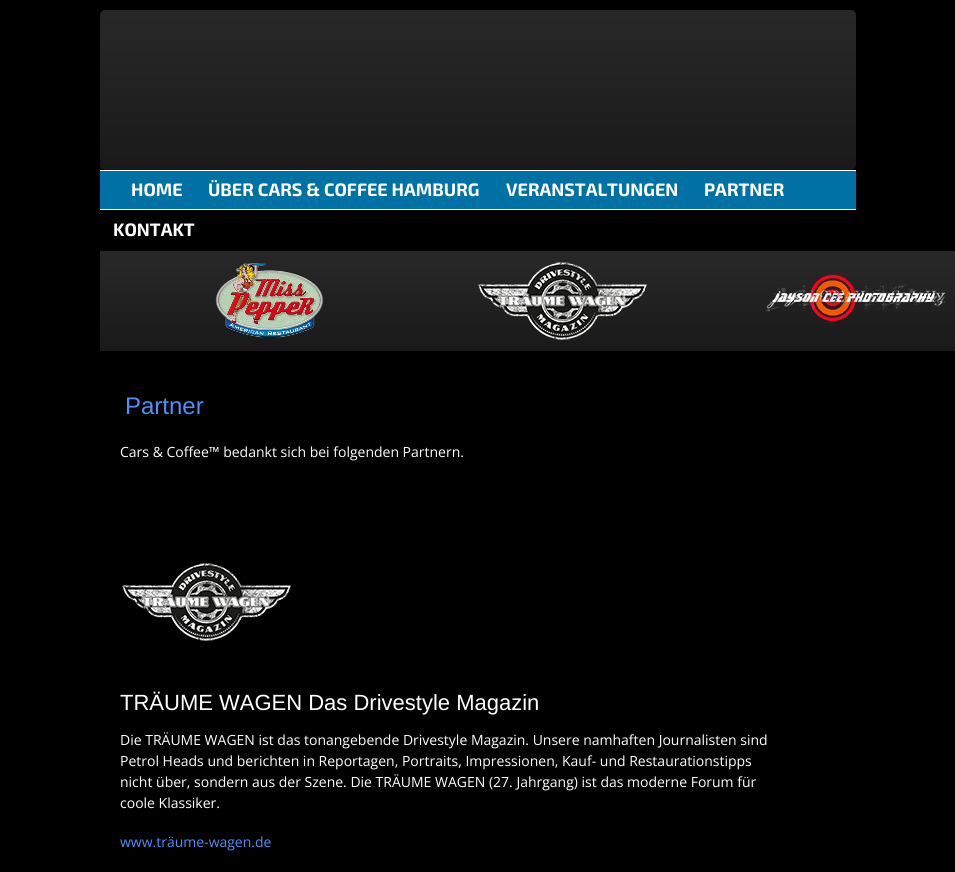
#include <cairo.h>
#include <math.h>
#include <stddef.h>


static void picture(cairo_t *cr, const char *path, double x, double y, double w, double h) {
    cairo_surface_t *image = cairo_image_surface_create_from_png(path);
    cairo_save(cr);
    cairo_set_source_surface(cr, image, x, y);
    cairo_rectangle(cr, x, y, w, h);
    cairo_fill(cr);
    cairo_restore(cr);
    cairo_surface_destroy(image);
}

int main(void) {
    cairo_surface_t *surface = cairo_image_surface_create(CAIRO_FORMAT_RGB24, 955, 872);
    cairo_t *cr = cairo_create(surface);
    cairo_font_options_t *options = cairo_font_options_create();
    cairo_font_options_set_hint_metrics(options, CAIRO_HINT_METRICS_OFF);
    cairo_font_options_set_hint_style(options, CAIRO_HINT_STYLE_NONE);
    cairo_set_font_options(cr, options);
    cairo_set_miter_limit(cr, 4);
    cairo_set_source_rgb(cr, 0, 0, 0);
    cairo_paint(cr);
    picture(cr, "img1.png", 100, 10, 756, 160);
    cairo_set_source_rgb(cr, 0, 0.443, 0.647);
    cairo_rectangle(cr, 100, 171, 756, 38);
    cairo_fill(cr);
    cairo_set_source_rgb(cr, 1, 1, 1);
    cairo_rectangle(cr, 100, 170, 756, 1);
    cairo_fill(cr);
    cairo_rectangle(cr, 100, 209, 756, 1);
    cairo_fill(cr);
    cairo_select_font_face(cr, "Exo 2", CAIRO_FONT_SLANT_NORMAL, CAIRO_FONT_WEIGHT_BOLD);
    cairo_set_font_size(cr, 18);
    cairo_move_to(cr, 131, 196);
    cairo_show_text(cr, "HOME");
    cairo_move_to(cr, 208, 196);
    cairo_show_text(cr, "ÜBER CARS & COFFEE HAMBURG");
    cairo_move_to(cr, 506, 196);
    cairo_show_text(cr, "VERANSTALTUNGEN");
    cairo_move_to(cr, 704, 196);
    cairo_show_text(cr, "PARTNER");
    cairo_move_to(cr, 113, 236);
    cairo_show_text(cr, "KONTAKT");
    picture(cr, "img2.png", 100, 251, 855, 100);
    picture(cr, "img3.png", 215, 262, 109, 76);
    picture(cr, "img4.png", 478, 262, 169, 78);
    picture(cr, "img5.png", 766, 274, 180, 48);
    cairo_select_font_face(cr, "Liberation Sans", CAIRO_FONT_SLANT_NORMAL, CAIRO_FONT_WEIGHT_NORMAL);
    cairo_set_font_size(cr, 24);
    cairo_set_source_rgb(cr, 0.306, 0.561, 0.98);
    cairo_move_to(cr, 125, 414);
    cairo_show_text(cr, "Partner");
    cairo_select_font_face(cr, "Open Sans", CAIRO_FONT_SLANT_NORMAL, CAIRO_FONT_WEIGHT_NORMAL);
    cairo_set_font_size(cr, 14);
    cairo_set_source_rgb(cr, 1, 1, 1);
    cairo_move_to(cr, 120, 457);
    cairo_show_text(cr, "Cars & Coffee™ bedankt sich bei folgenden Partnern.");
    picture(cr, "img6.png", 122, 563, 169, 78);
    cairo_select_font_face(cr, "Liberation Sans", CAIRO_FONT_SLANT_NORMAL, CAIRO_FONT_WEIGHT_NORMAL);
    cairo_set_font_size(cr, 22);
    cairo_move_to(cr, 120, 710);
    cairo_show_text(cr, "TRÄUME WAGEN Das Drivestyle Magazin");
    cairo_select_font_face(cr, "Open Sans", CAIRO_FONT_SLANT_NORMAL, CAIRO_FONT_WEIGHT_NORMAL);
    cairo_set_font_size(cr, 14);
    cairo_move_to(cr, 120, 745);
    cairo_show_text(cr, "Die TRÄUME WAGEN ist das tonangebende Drivestyle Magazin. Unsere namhaften Journalisten sind");
    cairo_move_to(cr, 120, 766);
    cairo_show_text(cr, "Petrol Heads und berichten in Reportagen, Portraits, Impressionen, Kauf- und Restaurationstipps");
    cairo_move_to(cr, 120, 787);
    cairo_show_text(cr, "nicht über, sondern aus der Szene. Die TRÄUME WAGEN (27. Jahrgang) ist das moderne Forum für");
    cairo_move_to(cr, 120, 808);
    cairo_show_text(cr, "coole Klassiker.");
    cairo_set_source_rgb(cr, 0.306, 0.561, 0.98);
    cairo_move_to(cr, 120, 847);
    cairo_show_text(cr, "www.träume-wagen.de");
    cairo_surface_write_to_png(surface, "page.png");
    cairo_font_options_destroy(options);
    cairo_destroy(cr);
    cairo_surface_destroy(surface);
    return 0;
}
